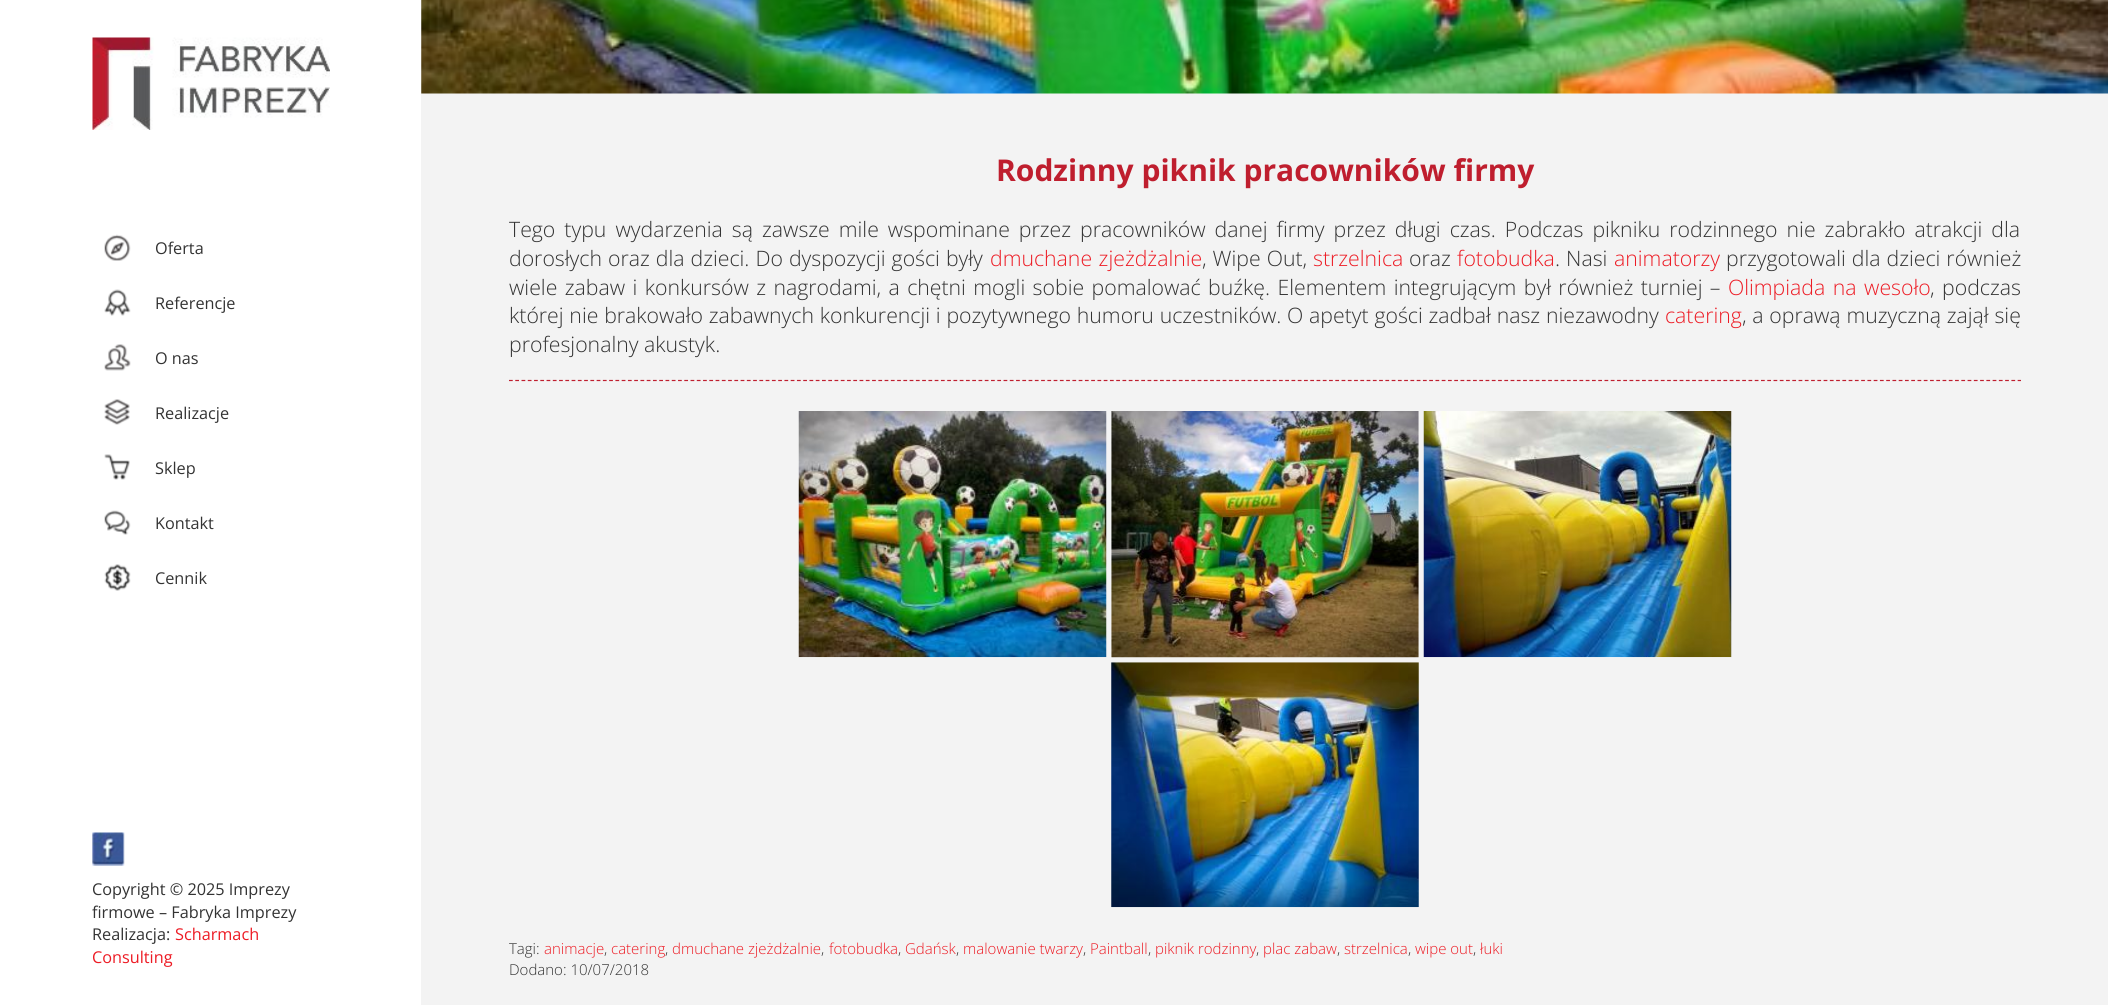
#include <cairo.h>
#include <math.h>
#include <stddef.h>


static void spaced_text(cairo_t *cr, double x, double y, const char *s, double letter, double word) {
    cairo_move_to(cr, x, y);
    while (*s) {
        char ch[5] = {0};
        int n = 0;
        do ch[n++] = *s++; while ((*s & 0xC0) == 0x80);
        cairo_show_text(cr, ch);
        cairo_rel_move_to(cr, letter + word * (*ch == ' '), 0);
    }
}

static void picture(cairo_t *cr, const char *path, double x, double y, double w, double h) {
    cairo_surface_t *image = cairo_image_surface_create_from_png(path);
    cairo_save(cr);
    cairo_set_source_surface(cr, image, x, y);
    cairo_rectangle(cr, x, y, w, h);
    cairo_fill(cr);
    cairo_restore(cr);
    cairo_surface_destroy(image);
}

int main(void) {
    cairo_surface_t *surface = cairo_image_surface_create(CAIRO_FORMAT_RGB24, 2108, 1005);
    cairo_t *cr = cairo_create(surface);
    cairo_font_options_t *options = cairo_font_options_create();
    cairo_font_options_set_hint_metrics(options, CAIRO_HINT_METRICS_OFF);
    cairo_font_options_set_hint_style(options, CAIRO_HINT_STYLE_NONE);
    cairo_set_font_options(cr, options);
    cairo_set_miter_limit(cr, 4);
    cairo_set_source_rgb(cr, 0.953, 0.953, 0.953);
    cairo_paint(cr);
    cairo_set_source_rgb(cr, 1, 1, 1);
    cairo_rectangle(cr, 0, 0, 421, 1005);
    cairo_fill(cr);
    picture(cr, "img1.png", 92, 37, 238, 93);
    picture(cr, "img2.png", 104, 234, 27, 27);
    cairo_select_font_face(cr, "Open Sans", CAIRO_FONT_SLANT_NORMAL, CAIRO_FONT_WEIGHT_NORMAL);
    cairo_set_font_size(cr, 16.25);
    cairo_set_source_rgb(cr, 0.2, 0.2, 0.2);
    cairo_move_to(cr, 155, 254);
    cairo_show_text(cr, "Oferta");
    picture(cr, "img3.png", 104, 289, 27, 27);
    cairo_move_to(cr, 155, 309);
    cairo_show_text(cr, "Referencje");
    picture(cr, "img4.png", 104, 344, 27, 27);
    cairo_move_to(cr, 155, 364);
    cairo_show_text(cr, "O nas");
    picture(cr, "img5.png", 104, 399, 26, 26);
    cairo_move_to(cr, 155, 419);
    cairo_show_text(cr, "Realizacje");
    picture(cr, "img6.png", 104, 454, 26, 26);
    cairo_move_to(cr, 155, 474);
    cairo_show_text(cr, "Sklep");
    picture(cr, "img7.png", 104, 510, 27, 25);
    cairo_move_to(cr, 155, 529);
    cairo_show_text(cr, "Kontakt");
    picture(cr, "img8.png", 104, 564, 27, 27);
    cairo_move_to(cr, 155, 584);
    cairo_show_text(cr, "Cennik");
    picture(cr, "img9.png", 92, 832, 33, 34);
    cairo_move_to(cr, 92, 895);
    cairo_show_text(cr, "Copyright © 2025 Imprezy");
    cairo_move_to(cr, 92, 918);
    cairo_show_text(cr, "firmowe – Fabryka Imprezy");
    cairo_move_to(cr, 92, 940);
    cairo_show_text(cr, "Realizacja:");
    cairo_set_source_rgb(cr, 0.929, 0.106, 0.141);
    cairo_move_to(cr, 175, 940);
    cairo_show_text(cr, "Scharmach");
    cairo_move_to(cr, 92, 963);
    cairo_show_text(cr, "Consulting");
    picture(cr, "img10.png", 421, 0, 1687, 94);
    cairo_select_font_face(cr, "Open Sans", CAIRO_FONT_SLANT_NORMAL, CAIRO_FONT_WEIGHT_BOLD);
    cairo_set_font_size(cr, 30);
    cairo_set_source_rgb(cr, 0.749, 0.118, 0.18);
    cairo_move_to(cr, 996, 181);
    cairo_show_text(cr, "Rodzinny piknik pracowników firmy");
    cairo_select_font_face(cr, "Open Sans Light", CAIRO_FONT_SLANT_NORMAL, CAIRO_FONT_WEIGHT_NORMAL);
    cairo_set_font_size(cr, 21.25);
    cairo_set_source_rgb(cr, 0.2, 0.2, 0.2);
    spaced_text(cr, 509, 237, "Tego typu wydarzenia są zawsze mile wspominane przez pracowników danej firmy przez długi czas. Podczas pikniku rodzinnego nie zabrakło atrakcji dla", 0, 3.5);
    spaced_text(cr, 509, 266, "dorosłych oraz dla dzieci. Do dyspozycji gości były", 0, 0.5);
    cairo_set_source_rgb(cr, 0.929, 0.106, 0.141);
    spaced_text(cr, 990, 266, "dmuchane zjeżdżalnie", 0, 1);
    cairo_set_source_rgb(cr, 0.2, 0.2, 0.2);
    spaced_text(cr, 1202, 266, ", Wipe Out,", 0, 0.5);
    cairo_set_source_rgb(cr, 0.929, 0.106, 0.141);
    cairo_move_to(cr, 1313, 266);
    cairo_show_text(cr, "strzelnica");
    cairo_set_source_rgb(cr, 0.2, 0.2, 0.2);
    cairo_move_to(cr, 1409, 266);
    cairo_show_text(cr, "oraz");
    cairo_set_source_rgb(cr, 0.929, 0.106, 0.141);
    cairo_move_to(cr, 1457, 266);
    cairo_show_text(cr, "fotobudka");
    cairo_set_source_rgb(cr, 0.2, 0.2, 0.2);
    spaced_text(cr, 1555, 266, ". Nasi", 0, 0.5);
    cairo_set_source_rgb(cr, 0.929, 0.106, 0.141);
    cairo_move_to(cr, 1614, 266);
    cairo_show_text(cr, "animatorzy");
    cairo_set_source_rgb(cr, 0.2, 0.2, 0.2);
    spaced_text(cr, 1726, 266, "przygotowali dla dzieci również", 0, 0.5);
    spaced_text(cr, 509, 295, "wiele zabaw i konkursów z nagrodami, a chętni mogli sobie pomalować buźkę. Elementem integrującym był również turniej –", 0, 1.9);
    cairo_set_source_rgb(cr, 0.929, 0.106, 0.141);
    spaced_text(cr, 1728, 295, "Olimpiada na wesoło", 0, 2);
    cairo_set_source_rgb(cr, 0.2, 0.2, 0.2);
    spaced_text(cr, 1930, 295, ", podczas", 0, 2);
    spaced_text(cr, 509, 323, "której nie brakowało zabawnych konkurencji i pozytywnego humoru uczestników. O apetyt gości zadbał nasz niezawodny", 0, 0.25);
    cairo_set_source_rgb(cr, 0.929, 0.106, 0.141);
    cairo_move_to(cr, 1665, 323);
    cairo_show_text(cr, "catering");
    cairo_set_source_rgb(cr, 0.2, 0.2, 0.2);
    spaced_text(cr, 1742, 323, ", a oprawą muzyczną zajął się", 0, 0.25);
    cairo_move_to(cr, 509, 352);
    cairo_show_text(cr, "profesjonalny akustyk.");
    cairo_new_path(cr);
    cairo_move_to(cr, 509, 380.5);
    cairo_line_to(cr, 2021, 380.5);
    cairo_set_source_rgb(cr, 0.749, 0.118, 0.18);
    cairo_set_line_width(cr, 1.2);
    cairo_set_dash(cr, (double[]){3.75, 2.51}, 2, 0);
    cairo_stroke(cr);
    cairo_set_source_rgb(cr, 0.969, 0.969, 0.969);
    cairo_rectangle(cr, 799, 657, 307, 1);
    cairo_fill(cr);
    picture(cr, "img11.png", 798, 411, 309, 247);
    cairo_rectangle(cr, 1111, 411, 308, 247);
    cairo_fill(cr);
    picture(cr, "img12.png", 1111, 411, 308, 247);
    cairo_rectangle(cr, 1424, 657, 307, 1);
    cairo_fill(cr);
    picture(cr, "img13.png", 1423, 411, 309, 247);
    cairo_rectangle(cr, 1111, 663, 308, 245);
    cairo_fill(cr);
    picture(cr, "img14.png", 1111, 662, 308, 246);
    cairo_set_font_size(cr, 15);
    cairo_set_source_rgb(cr, 0.2, 0.2, 0.2);
    cairo_move_to(cr, 509, 954);
    cairo_show_text(cr, "Tagi:");
    cairo_set_source_rgb(cr, 0.929, 0.106, 0.141);
    cairo_move_to(cr, 544, 954);
    cairo_show_text(cr, "animacje");
    cairo_set_source_rgb(cr, 0.2, 0.2, 0.2);
    cairo_move_to(cr, 604, 954);
    cairo_show_text(cr, ",");
    cairo_set_source_rgb(cr, 0.929, 0.106, 0.141);
    cairo_move_to(cr, 611, 954);
    cairo_show_text(cr, "catering");
    cairo_set_source_rgb(cr, 0.2, 0.2, 0.2);
    cairo_move_to(cr, 665, 954);
    cairo_show_text(cr, ",");
    cairo_set_source_rgb(cr, 0.929, 0.106, 0.141);
    cairo_move_to(cr, 672, 954);
    cairo_show_text(cr, "dmuchane zjeżdżalnie");
    cairo_set_source_rgb(cr, 0.2, 0.2, 0.2);
    cairo_move_to(cr, 821, 954);
    cairo_show_text(cr, ",");
    cairo_set_source_rgb(cr, 0.929, 0.106, 0.141);
    cairo_move_to(cr, 829, 954);
    cairo_show_text(cr, "fotobudka");
    cairo_set_source_rgb(cr, 0.2, 0.2, 0.2);
    cairo_move_to(cr, 898, 954);
    cairo_show_text(cr, ",");
    cairo_set_source_rgb(cr, 0.929, 0.106, 0.141);
    cairo_move_to(cr, 905, 954);
    cairo_show_text(cr, "Gdańsk");
    cairo_set_source_rgb(cr, 0.2, 0.2, 0.2);
    cairo_move_to(cr, 956, 954);
    cairo_show_text(cr, ",");
    cairo_set_source_rgb(cr, 0.929, 0.106, 0.141);
    cairo_move_to(cr, 963, 954);
    cairo_show_text(cr, "malowanie twarzy");
    cairo_set_source_rgb(cr, 0.2, 0.2, 0.2);
    cairo_move_to(cr, 1083, 954);
    cairo_show_text(cr, ",");
    cairo_set_source_rgb(cr, 0.929, 0.106, 0.141);
    cairo_move_to(cr, 1090, 954);
    cairo_show_text(cr, "Paintball");
    cairo_set_source_rgb(cr, 0.2, 0.2, 0.2);
    cairo_move_to(cr, 1148, 954);
    cairo_show_text(cr, ",");
    cairo_set_source_rgb(cr, 0.929, 0.106, 0.141);
    cairo_move_to(cr, 1155, 954);
    cairo_show_text(cr, "piknik rodzinny");
    cairo_set_source_rgb(cr, 0.2, 0.2, 0.2);
    cairo_move_to(cr, 1256, 954);
    cairo_show_text(cr, ",");
    cairo_set_source_rgb(cr, 0.929, 0.106, 0.141);
    cairo_move_to(cr, 1263, 954);
    cairo_show_text(cr, "plac zabaw");
    cairo_set_source_rgb(cr, 0.2, 0.2, 0.2);
    cairo_move_to(cr, 1337, 954);
    cairo_show_text(cr, ",");
    cairo_set_source_rgb(cr, 0.929, 0.106, 0.141);
    cairo_move_to(cr, 1344, 954);
    cairo_show_text(cr, "strzelnica");
    cairo_set_source_rgb(cr, 0.2, 0.2, 0.2);
    cairo_move_to(cr, 1408, 954);
    cairo_show_text(cr, ",");
    cairo_set_source_rgb(cr, 0.929, 0.106, 0.141);
    cairo_move_to(cr, 1415, 954);
    cairo_show_text(cr, "wipe out");
    cairo_set_source_rgb(cr, 0.2, 0.2, 0.2);
    cairo_move_to(cr, 1473, 954);
    cairo_show_text(cr, ",");
    cairo_set_source_rgb(cr, 0.929, 0.106, 0.141);
    cairo_move_to(cr, 1480, 954);
    cairo_show_text(cr, "łuki");
    cairo_set_source_rgb(cr, 0.2, 0.2, 0.2);
    cairo_move_to(cr, 509, 975);
    cairo_show_text(cr, "Dodano: 10/07/2018");
    cairo_surface_write_to_png(surface, "page.png");
    cairo_font_options_destroy(options);
    cairo_destroy(cr);
    cairo_surface_destroy(surface);
    return 0;
}
